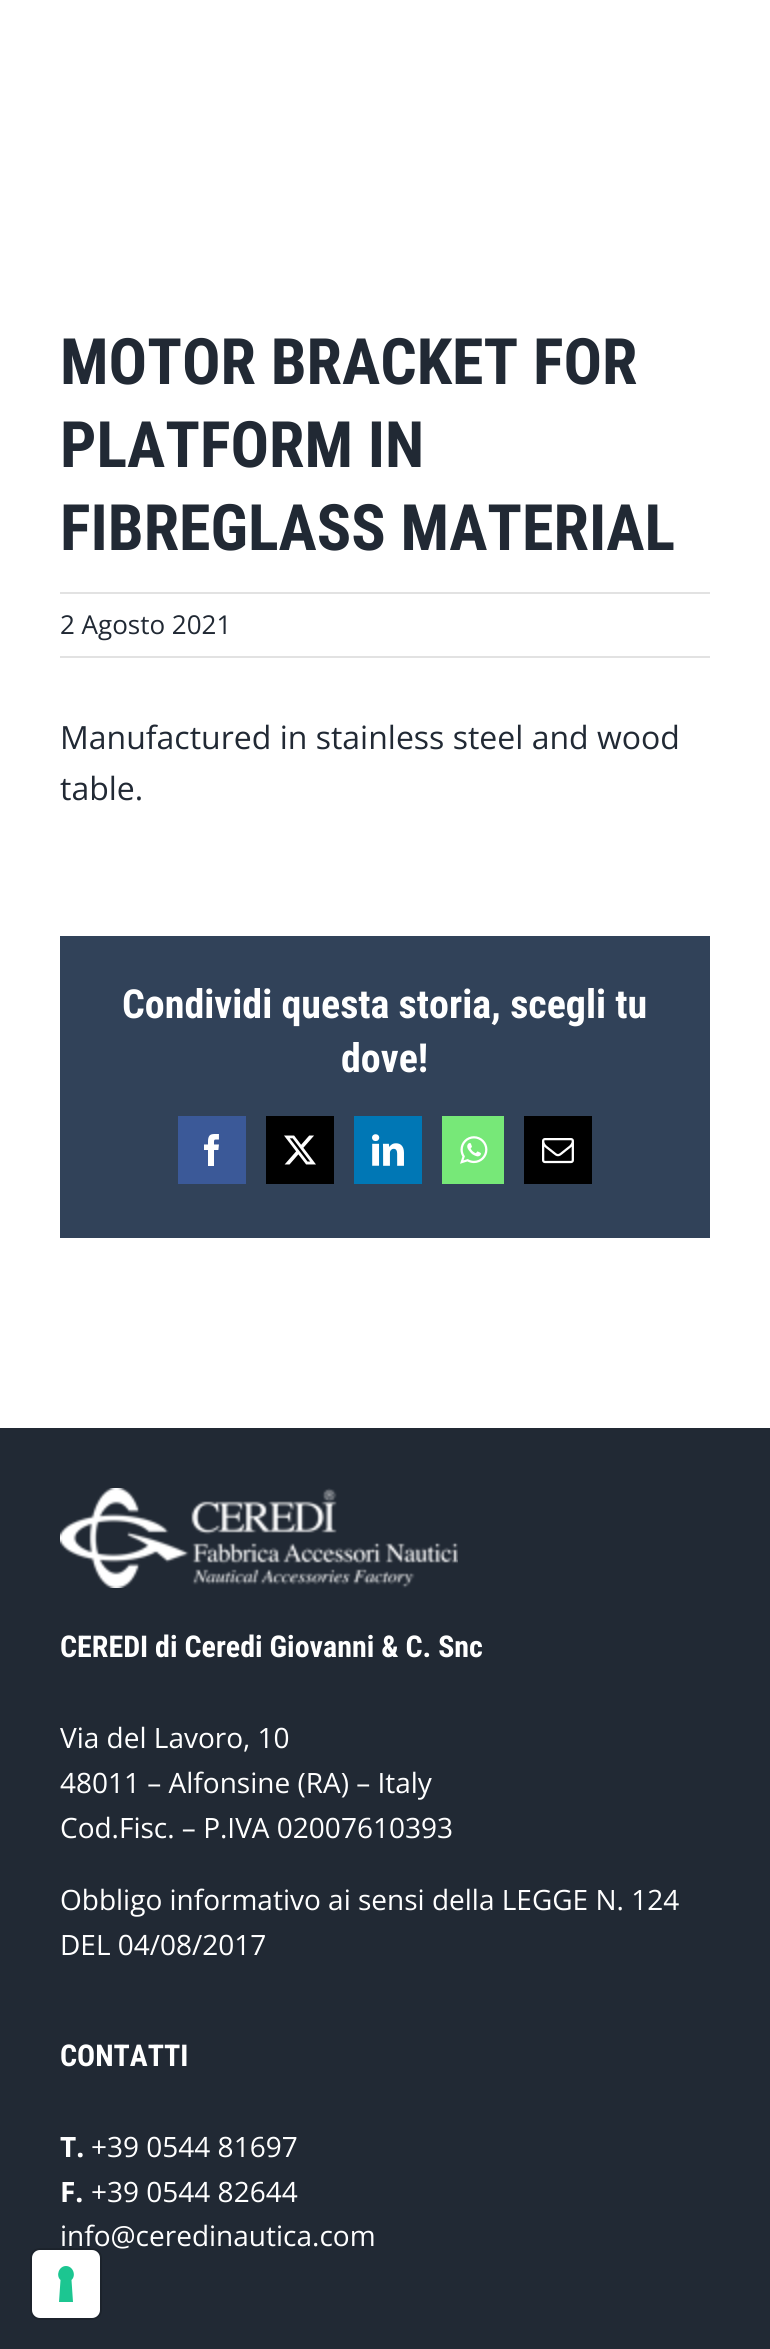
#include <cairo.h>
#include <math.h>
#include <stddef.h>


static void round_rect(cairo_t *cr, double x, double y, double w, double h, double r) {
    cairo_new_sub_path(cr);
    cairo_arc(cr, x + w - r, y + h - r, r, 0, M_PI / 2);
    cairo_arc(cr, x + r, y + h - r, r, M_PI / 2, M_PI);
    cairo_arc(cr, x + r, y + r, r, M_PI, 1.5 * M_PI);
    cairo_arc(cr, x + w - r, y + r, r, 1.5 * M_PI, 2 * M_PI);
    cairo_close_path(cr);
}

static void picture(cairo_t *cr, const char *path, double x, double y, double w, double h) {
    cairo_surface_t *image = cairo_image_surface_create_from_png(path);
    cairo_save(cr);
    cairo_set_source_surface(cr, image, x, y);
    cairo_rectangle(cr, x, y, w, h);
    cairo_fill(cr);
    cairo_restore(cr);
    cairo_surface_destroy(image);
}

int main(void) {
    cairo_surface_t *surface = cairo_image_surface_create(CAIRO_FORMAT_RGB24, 770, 2349);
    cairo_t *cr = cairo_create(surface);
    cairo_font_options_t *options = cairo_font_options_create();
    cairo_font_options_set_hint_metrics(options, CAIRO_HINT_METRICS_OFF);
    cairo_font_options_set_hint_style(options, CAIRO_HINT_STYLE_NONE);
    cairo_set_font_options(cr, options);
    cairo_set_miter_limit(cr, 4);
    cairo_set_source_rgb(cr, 1, 1, 1);
    cairo_paint(cr);
    cairo_select_font_face(cr, "Roboto Condensed", CAIRO_FONT_SLANT_NORMAL, CAIRO_FONT_WEIGHT_BOLD);
    cairo_set_font_size(cr, 64);
    cairo_set_source_rgb(cr, 0.129, 0.161, 0.204);
    cairo_move_to(cr, 60, 384);
    cairo_show_text(cr, "MOTOR BRACKET FOR");
    cairo_move_to(cr, 60, 467);
    cairo_show_text(cr, "PLATFORM IN");
    cairo_move_to(cr, 60, 550);
    cairo_show_text(cr, "FIBREGLASS MATERIAL");
    cairo_set_source_rgb(cr, 0.886, 0.886, 0.886);
    cairo_rectangle(cr, 60, 592, 650, 2);
    cairo_fill(cr);
    cairo_rectangle(cr, 60, 656, 650, 2);
    cairo_fill(cr);
    cairo_select_font_face(cr, "Open Sans", CAIRO_FONT_SLANT_NORMAL, CAIRO_FONT_WEIGHT_NORMAL);
    cairo_set_font_size(cr, 26);
    cairo_set_source_rgb(cr, 0.129, 0.161, 0.204);
    cairo_move_to(cr, 60, 634);
    cairo_show_text(cr, "2 Agosto 2021");
    cairo_set_font_size(cr, 32);
    cairo_move_to(cr, 60, 749);
    cairo_show_text(cr, "Manufactured in stainless steel and wood");
    cairo_move_to(cr, 60, 800);
    cairo_show_text(cr, "table.");
    cairo_set_source_rgb(cr, 0.192, 0.259, 0.349);
    cairo_rectangle(cr, 60, 936, 650, 302);
    cairo_fill(cr);
    cairo_select_font_face(cr, "Roboto Condensed", CAIRO_FONT_SLANT_NORMAL, CAIRO_FONT_WEIGHT_BOLD);
    cairo_set_font_size(cr, 40);
    cairo_set_source_rgb(cr, 1, 1, 1);
    cairo_move_to(cr, 122, 1018);
    cairo_show_text(cr, "Condividi questa storia, scegli tu");
    cairo_move_to(cr, 341, 1072);
    cairo_show_text(cr, "dove!");
    cairo_set_source_rgb(cr, 0.231, 0.349, 0.596);
    cairo_rectangle(cr, 178, 1116, 68, 68);
    cairo_fill(cr);
    picture(cr, "img1.png", 204, 1134, 15, 32);
    cairo_set_source_rgb(cr, 0, 0, 0);
    cairo_rectangle(cr, 266, 1116, 68, 68);
    cairo_fill(cr);
    picture(cr, "img2.png", 284, 1135, 32, 30);
    cairo_set_source_rgb(cr, 0, 0.467, 0.71);
    cairo_rectangle(cr, 354, 1116, 68, 68);
    cairo_fill(cr);
    picture(cr, "img3.png", 372, 1134, 32, 32);
    cairo_set_source_rgb(cr, 0.467, 0.91, 0.471);
    cairo_rectangle(cr, 442, 1116, 62, 68);
    cairo_fill(cr);
    picture(cr, "img4.png", 460, 1136, 28, 28);
    cairo_set_source_rgb(cr, 0, 0, 0);
    cairo_rectangle(cr, 524, 1116, 68, 68);
    cairo_fill(cr);
    picture(cr, "img5.png", 542, 1138, 32, 26);
    cairo_set_source_rgb(cr, 0.129, 0.161, 0.204);
    cairo_rectangle(cr, 0, 1428, 770, 921);
    cairo_fill(cr);
    picture(cr, "img6.png", 60, 1488, 398, 100);
    cairo_set_font_size(cr, 30);
    cairo_set_source_rgb(cr, 1, 1, 1);
    cairo_move_to(cr, 60, 1657);
    cairo_show_text(cr, "CEREDI di Ceredi Giovanni & C. Snc");
    cairo_select_font_face(cr, "Open Sans", CAIRO_FONT_SLANT_NORMAL, CAIRO_FONT_WEIGHT_NORMAL);
    cairo_set_font_size(cr, 28);
    cairo_move_to(cr, 60, 1748);
    cairo_show_text(cr, "Via del Lavoro, 10");
    cairo_move_to(cr, 60, 1793);
    cairo_show_text(cr, "48011 – Alfonsine (RA) – Italy");
    cairo_move_to(cr, 60, 1838);
    cairo_show_text(cr, "Cod.Fisc. – P.IVA 02007610393");
    cairo_move_to(cr, 60, 1910);
    cairo_show_text(cr, "Obbligo informativo ai sensi della LEGGE N. 124");
    cairo_move_to(cr, 60, 1955);
    cairo_show_text(cr, "DEL 04/08/2017");
    cairo_select_font_face(cr, "Roboto Condensed", CAIRO_FONT_SLANT_NORMAL, CAIRO_FONT_WEIGHT_BOLD);
    cairo_set_font_size(cr, 30);
    cairo_move_to(cr, 60, 2066);
    cairo_show_text(cr, "CONTATTI");
    cairo_select_font_face(cr, "Open Sans", CAIRO_FONT_SLANT_NORMAL, CAIRO_FONT_WEIGHT_BOLD);
    cairo_set_font_size(cr, 28);
    cairo_move_to(cr, 60, 2157);
    cairo_show_text(cr, "T.");
    cairo_select_font_face(cr, "Open Sans", CAIRO_FONT_SLANT_NORMAL, CAIRO_FONT_WEIGHT_NORMAL);
    cairo_move_to(cr, 91, 2157);
    cairo_show_text(cr, "+39 0544 81697");
    cairo_select_font_face(cr, "Open Sans", CAIRO_FONT_SLANT_NORMAL, CAIRO_FONT_WEIGHT_BOLD);
    cairo_move_to(cr, 60, 2202);
    cairo_show_text(cr, "F.");
    cairo_select_font_face(cr, "Open Sans", CAIRO_FONT_SLANT_NORMAL, CAIRO_FONT_WEIGHT_NORMAL);
    cairo_move_to(cr, 91, 2202);
    cairo_show_text(cr, "+39 0544 82644");
    cairo_move_to(cr, 60, 2246);
    cairo_show_text(cr, "info@ceredinautica.com");
    round_rect(cr, 31, 2249, 70, 70, 9);
    cairo_set_source_rgb(cr, 0.11, 0.137, 0.173);
    cairo_stroke(cr);
    cairo_set_source_rgb(cr, 1, 1, 1);
    round_rect(cr, 32, 2250, 68, 68, 8);
    cairo_fill(cr);
    cairo_set_source_rgb(cr, 0.11, 0.776, 0.569);
    cairo_set_fill_rule(cr, CAIRO_FILL_RULE_EVEN_ODD);
    cairo_new_path(cr);
    cairo_move_to(cr, 66, 2266);
    cairo_curve_to(cr, 73, 2266, 76.5, 2275.5, 71.5, 2280);
    cairo_line_to(cr, 73, 2302);
    cairo_line_to(cr, 59, 2302);
    cairo_line_to(cr, 60.5, 2280);
    cairo_curve_to(cr, 55.5, 2275.5, 59, 2266, 66, 2266);
    cairo_close_path(cr);
    cairo_fill(cr);
    cairo_surface_write_to_png(surface, "page.png");
    cairo_font_options_destroy(options);
    cairo_destroy(cr);
    cairo_surface_destroy(surface);
    return 0;
}
